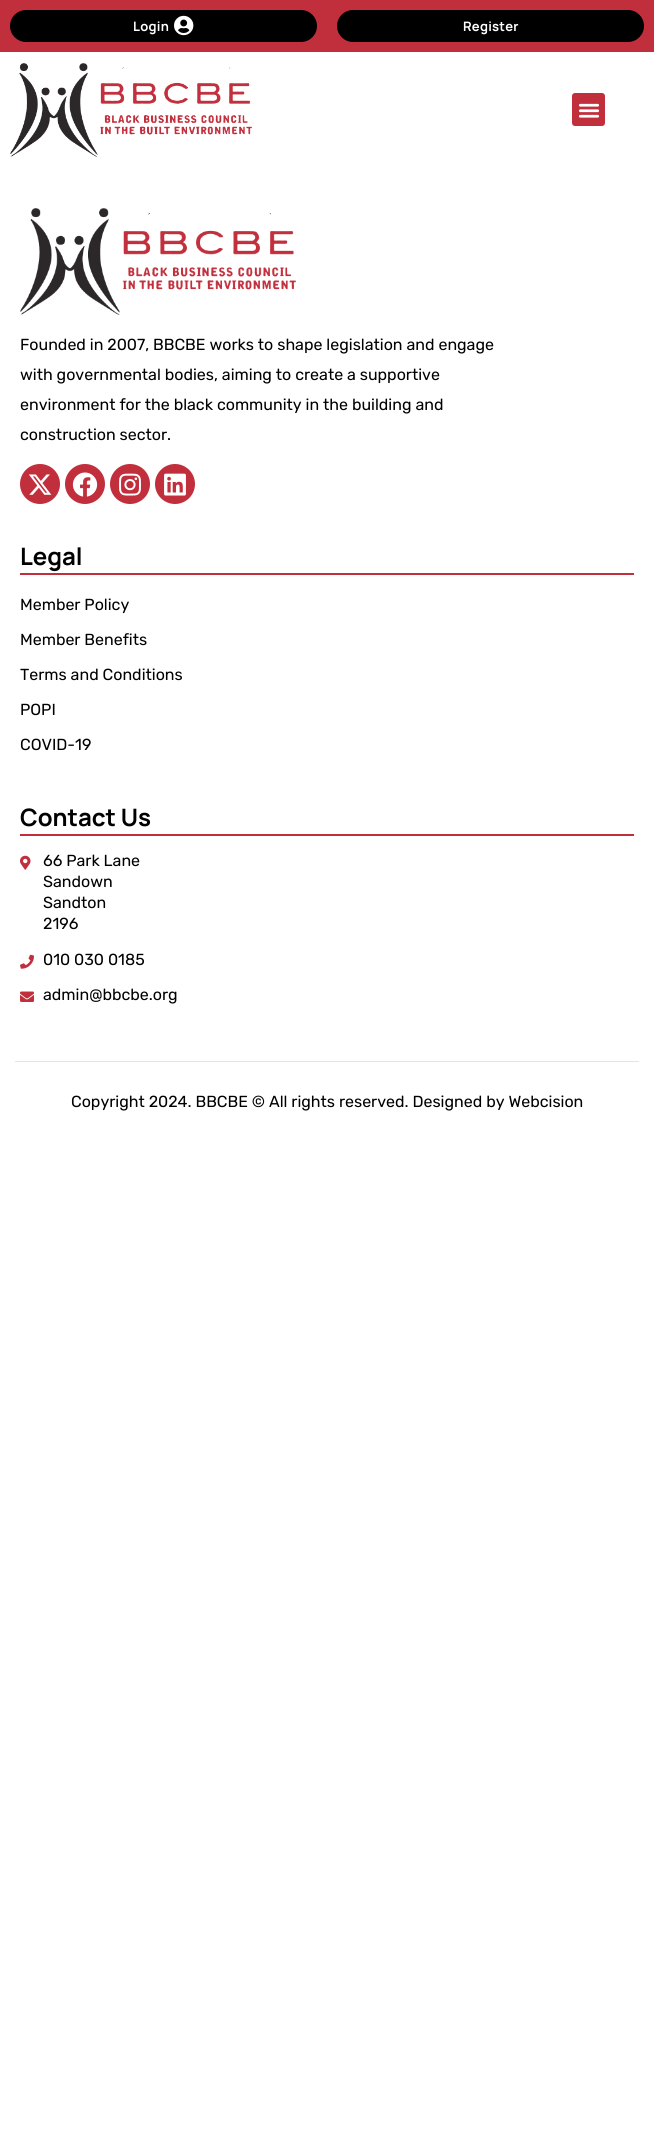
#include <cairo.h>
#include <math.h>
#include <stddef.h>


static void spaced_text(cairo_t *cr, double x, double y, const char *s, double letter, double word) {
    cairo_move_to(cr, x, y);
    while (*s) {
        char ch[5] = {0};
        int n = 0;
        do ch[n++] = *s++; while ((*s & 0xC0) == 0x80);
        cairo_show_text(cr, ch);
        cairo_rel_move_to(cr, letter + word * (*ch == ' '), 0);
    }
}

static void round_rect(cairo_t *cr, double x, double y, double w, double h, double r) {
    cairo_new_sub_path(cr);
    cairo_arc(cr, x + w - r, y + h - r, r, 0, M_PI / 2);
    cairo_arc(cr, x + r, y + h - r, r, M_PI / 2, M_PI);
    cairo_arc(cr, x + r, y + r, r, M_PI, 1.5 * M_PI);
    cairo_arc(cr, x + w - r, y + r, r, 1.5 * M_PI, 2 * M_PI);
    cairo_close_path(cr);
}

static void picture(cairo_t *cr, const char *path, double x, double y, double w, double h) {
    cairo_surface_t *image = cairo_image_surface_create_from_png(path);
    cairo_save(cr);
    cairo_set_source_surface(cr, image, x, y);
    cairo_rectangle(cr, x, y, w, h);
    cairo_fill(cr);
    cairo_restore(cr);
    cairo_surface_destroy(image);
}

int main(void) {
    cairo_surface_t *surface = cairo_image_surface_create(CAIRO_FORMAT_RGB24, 654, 2139);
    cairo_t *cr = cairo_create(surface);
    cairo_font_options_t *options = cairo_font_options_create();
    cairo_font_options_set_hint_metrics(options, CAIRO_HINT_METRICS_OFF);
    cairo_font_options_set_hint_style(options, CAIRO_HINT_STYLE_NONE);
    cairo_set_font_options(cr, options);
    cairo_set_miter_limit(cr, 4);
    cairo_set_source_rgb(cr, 1, 1, 1);
    cairo_paint(cr);
    cairo_set_source_rgb(cr, 0.757, 0.184, 0.239);
    cairo_rectangle(cr, 0, 0, 654, 52);
    cairo_fill(cr);
    cairo_set_source_rgb(cr, 0, 0, 0);
    round_rect(cr, 10, 10, 307, 32, 16);
    cairo_fill(cr);
    cairo_select_font_face(cr, "Manrope", CAIRO_FONT_SLANT_NORMAL, CAIRO_FONT_WEIGHT_BOLD);
    cairo_set_font_size(cr, 13);
    cairo_set_source_rgb(cr, 1, 1, 1);
    spaced_text(cr, 133, 31, "Login", 0.25, 0);
    picture(cr, "img1.png", 174, 15, 20, 21);
    cairo_set_source_rgb(cr, 0, 0, 0);
    round_rect(cr, 337, 10, 307, 32, 16);
    cairo_fill(cr);
    cairo_set_source_rgb(cr, 1, 1, 1);
    spaced_text(cr, 463, 31, "Register", 0.25, 0);
    picture(cr, "img2.png", 10, 63, 242, 94);
    cairo_set_source_rgb(cr, 0.757, 0.184, 0.239);
    round_rect(cr, 572, 93, 33, 33, 3);
    cairo_fill(cr);
    picture(cr, "img3.png", 578, 103, 22, 15);
    picture(cr, "img4.png", 20, 208, 276, 107);
    cairo_select_font_face(cr, "Rubik", CAIRO_FONT_SLANT_NORMAL, CAIRO_FONT_WEIGHT_NORMAL);
    cairo_set_font_size(cr, 16);
    cairo_set_source_rgb(cr, 0, 0, 0);
    cairo_move_to(cr, 20, 350);
    cairo_show_text(cr, "Founded in 2007, BBCBE works to shape legislation and engage");
    cairo_move_to(cr, 20, 380);
    cairo_show_text(cr, "with governmental bodies, aiming to create a supportive");
    cairo_move_to(cr, 20, 410);
    cairo_show_text(cr, "environment for the black community in the building and");
    cairo_move_to(cr, 20, 440);
    cairo_show_text(cr, "construction sector.");
    cairo_set_source_rgb(cr, 0.757, 0.184, 0.239);
    cairo_new_path(cr);
    cairo_arc(cr, 40, 484, 20, 0, 2 * M_PI);
    cairo_fill(cr);
    picture(cr, "img5.png", 29, 474, 23, 21);
    cairo_arc(cr, 85, 484, 20, 0, 2 * M_PI);
    cairo_fill(cr);
    picture(cr, "img6.png", 72, 472, 26, 25);
    cairo_arc(cr, 130, 484, 20, 0, 2 * M_PI);
    cairo_fill(cr);
    picture(cr, "img7.png", 119, 473, 22, 23);
    cairo_arc(cr, 175, 484, 20, 0, 2 * M_PI);
    cairo_fill(cr);
    picture(cr, "img8.png", 164, 473, 22, 23);
    cairo_select_font_face(cr, "Manrope", CAIRO_FONT_SLANT_NORMAL, CAIRO_FONT_WEIGHT_BOLD);
    cairo_set_font_size(cr, 24);
    cairo_set_source_rgb(cr, 0, 0, 0);
    cairo_move_to(cr, 20, 565);
    cairo_show_text(cr, "Legal");
    cairo_set_source_rgb(cr, 0.757, 0.184, 0.239);
    cairo_rectangle(cr, 20, 573, 614, 2);
    cairo_fill(cr);
    cairo_select_font_face(cr, "Rubik", CAIRO_FONT_SLANT_NORMAL, CAIRO_FONT_WEIGHT_NORMAL);
    cairo_set_font_size(cr, 16);
    cairo_set_source_rgb(cr, 0, 0, 0);
    cairo_move_to(cr, 20, 610);
    cairo_show_text(cr, "Member Policy");
    cairo_move_to(cr, 20, 645);
    cairo_show_text(cr, "Member Benefits");
    cairo_move_to(cr, 20, 680);
    cairo_show_text(cr, "Terms and Conditions");
    cairo_move_to(cr, 20, 715);
    cairo_show_text(cr, "POPI");
    cairo_move_to(cr, 20, 750);
    cairo_show_text(cr, "COVID-19");
    cairo_select_font_face(cr, "Manrope", CAIRO_FONT_SLANT_NORMAL, CAIRO_FONT_WEIGHT_BOLD);
    cairo_set_font_size(cr, 24);
    cairo_move_to(cr, 20, 826);
    cairo_show_text(cr, "Contact Us");
    cairo_set_source_rgb(cr, 0.757, 0.184, 0.239);
    cairo_rectangle(cr, 20, 834, 614, 2);
    cairo_fill(cr);
    picture(cr, "img9.png", 20, 855, 11, 15);
    cairo_select_font_face(cr, "Rubik", CAIRO_FONT_SLANT_NORMAL, CAIRO_FONT_WEIGHT_NORMAL);
    cairo_set_font_size(cr, 16);
    cairo_set_source_rgb(cr, 0, 0, 0);
    cairo_move_to(cr, 43, 866);
    cairo_show_text(cr, "66 Park Lane");
    cairo_move_to(cr, 43, 887);
    cairo_show_text(cr, "Sandown");
    cairo_move_to(cr, 43, 908);
    cairo_show_text(cr, "Sandton");
    cairo_move_to(cr, 43, 929);
    cairo_show_text(cr, "2196");
    picture(cr, "img10.png", 20, 954, 14, 15);
    cairo_move_to(cr, 43, 965);
    cairo_show_text(cr, "010 030 0185");
    picture(cr, "img11.png", 20, 991, 14, 11);
    cairo_move_to(cr, 43, 1000);
    cairo_show_text(cr, "admin@bbcbe.org");
    cairo_set_source_rgb(cr, 0.894, 0.894, 0.894);
    cairo_rectangle(cr, 15, 1061, 624, 1);
    cairo_fill(cr);
    cairo_set_source_rgb(cr, 0, 0, 0);
    cairo_move_to(cr, 71, 1107);
    cairo_show_text(cr, "Copyright 2024. BBCBE © All rights reserved. Designed by Webcision");
    cairo_surface_write_to_png(surface, "page.png");
    cairo_font_options_destroy(options);
    cairo_destroy(cr);
    cairo_surface_destroy(surface);
    return 0;
}
